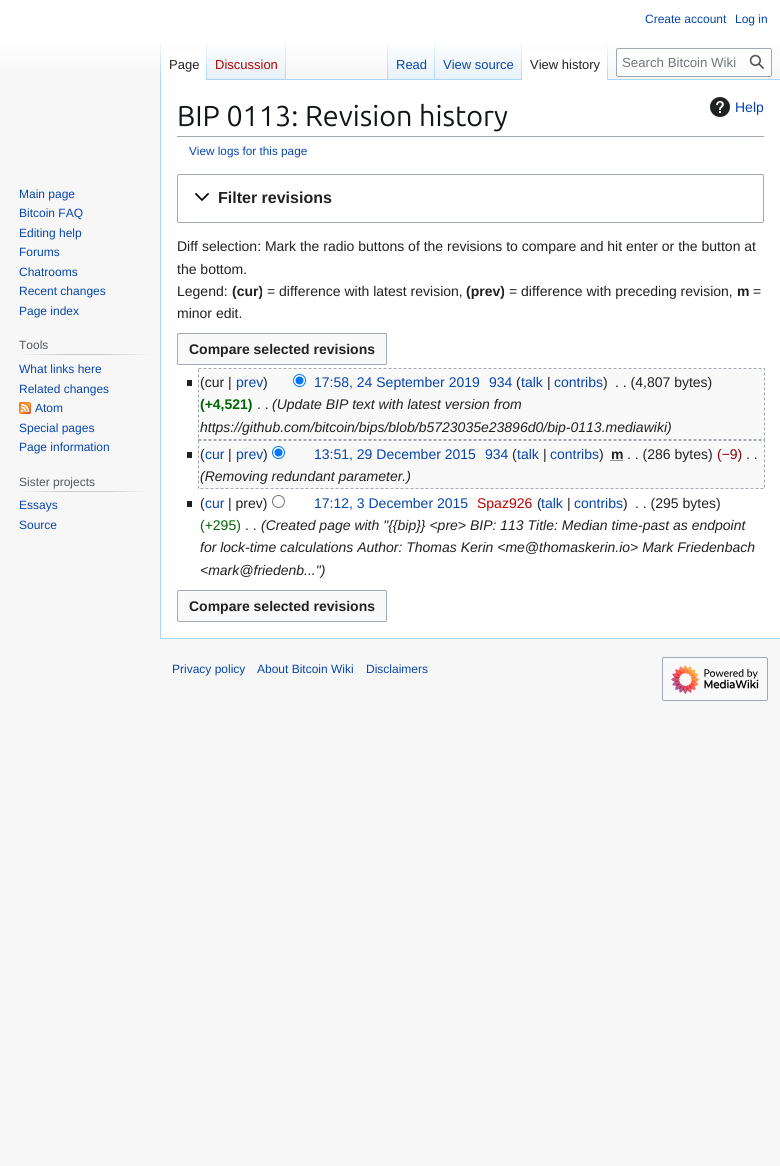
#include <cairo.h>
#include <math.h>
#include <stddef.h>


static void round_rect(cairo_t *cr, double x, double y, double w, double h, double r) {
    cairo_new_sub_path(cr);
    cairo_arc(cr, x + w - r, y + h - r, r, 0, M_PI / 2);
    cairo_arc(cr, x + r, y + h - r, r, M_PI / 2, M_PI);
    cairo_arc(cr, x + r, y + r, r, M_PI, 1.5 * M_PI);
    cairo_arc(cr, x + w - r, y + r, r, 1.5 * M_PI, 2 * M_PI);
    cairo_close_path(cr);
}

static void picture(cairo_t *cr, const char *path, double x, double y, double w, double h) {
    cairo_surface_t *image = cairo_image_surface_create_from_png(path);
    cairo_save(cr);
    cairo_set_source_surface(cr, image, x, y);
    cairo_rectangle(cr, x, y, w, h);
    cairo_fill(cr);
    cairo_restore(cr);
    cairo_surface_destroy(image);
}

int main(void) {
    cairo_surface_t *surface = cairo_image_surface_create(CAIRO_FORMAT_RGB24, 780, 1166);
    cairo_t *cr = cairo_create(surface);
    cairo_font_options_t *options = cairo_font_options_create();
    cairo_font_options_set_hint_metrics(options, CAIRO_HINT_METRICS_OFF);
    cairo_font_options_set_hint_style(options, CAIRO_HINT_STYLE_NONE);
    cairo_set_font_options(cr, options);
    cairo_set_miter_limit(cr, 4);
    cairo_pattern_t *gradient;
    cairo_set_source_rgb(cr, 0.965, 0.965, 0.965);
    cairo_paint(cr);
    gradient = cairo_pattern_create_linear(390, 0, 390, 80);
    cairo_pattern_add_color_stop_rgba(gradient, 0.5, 1, 1, 1, 1);
    cairo_pattern_add_color_stop_rgba(gradient, 1, 0.965, 0.965, 0.965, 1);
    cairo_set_source(cr, gradient);
    cairo_pattern_destroy(gradient);
    cairo_rectangle(cr, 0, 0, 780, 69);
    cairo_fill(cr);
    cairo_select_font_face(cr, "Liberation Sans", CAIRO_FONT_SLANT_NORMAL, CAIRO_FONT_WEIGHT_NORMAL);
    cairo_set_font_size(cr, 12);
    cairo_set_source_rgb(cr, 0.024, 0.271, 0.678);
    cairo_move_to(cr, 645, 23);
    cairo_show_text(cr, "Create account");
    cairo_move_to(cr, 735, 23);
    cairo_show_text(cr, "Log in");
    cairo_set_source_rgb(cr, 0.655, 0.843, 0.976);
    cairo_rectangle(cr, 160, 638, 620, 1);
    cairo_fill(cr);
    cairo_rectangle(cr, 160, 79, 1, 560);
    cairo_fill(cr);
    gradient = cairo_pattern_create_linear(161, 40, 161, 80);
    cairo_pattern_add_color_stop_rgba(gradient, 0, 0.655, 0.843, 0.976, 0);
    cairo_pattern_add_color_stop_rgba(gradient, 1, 0.655, 0.843, 0.976, 1);
    cairo_set_source(cr, gradient);
    cairo_pattern_destroy(gradient);
    cairo_rectangle(cr, 160, 40, 1, 40);
    cairo_fill(cr);
    cairo_set_source_rgb(cr, 1, 1, 1);
    cairo_rectangle(cr, 161, 51, 45, 29);
    cairo_fill(cr);
    gradient = cairo_pattern_create_linear(207, 40, 207, 80);
    cairo_pattern_add_color_stop_rgba(gradient, 0, 1, 1, 1, 1);
    cairo_pattern_add_color_stop_rgba(gradient, 1, 0.655, 0.843, 0.976, 1);
    cairo_set_source(cr, gradient);
    cairo_pattern_destroy(gradient);
    cairo_rectangle(cr, 206, 40, 1, 40);
    cairo_fill(cr);
    cairo_set_font_size(cr, 13);
    cairo_set_source_rgb(cr, 0.125, 0.129, 0.133);
    cairo_move_to(cr, 169, 69);
    cairo_show_text(cr, "Page");
    gradient = cairo_pattern_create_linear(247, 80, 247, 40);
    cairo_pattern_add_color_stop_rgba(gradient, 0, 0.467, 0.757, 0.965, 1);
    cairo_pattern_add_color_stop_rgba(gradient, 0.03, 0.91, 0.949, 0.973, 1);
    cairo_pattern_add_color_stop_rgba(gradient, 1, 1, 1, 1, 1);
    cairo_set_source(cr, gradient);
    cairo_pattern_destroy(gradient);
    cairo_rectangle(cr, 207, 46, 79, 34);
    cairo_fill(cr);
    gradient = cairo_pattern_create_linear(286, 40, 286, 80);
    cairo_pattern_add_color_stop_rgba(gradient, 0, 0.655, 0.843, 0.976, 0);
    cairo_pattern_add_color_stop_rgba(gradient, 1, 0.655, 0.843, 0.976, 1);
    cairo_set_source(cr, gradient);
    cairo_pattern_destroy(gradient);
    cairo_rectangle(cr, 285, 40, 1, 40);
    cairo_fill(cr);
    cairo_set_source_rgb(cr, 0.729, 0, 0);
    cairo_move_to(cr, 215, 69);
    cairo_show_text(cr, "Discussion");
    cairo_set_source_rgb(cr, 0.655, 0.843, 0.976);
    cairo_rectangle(cr, 286, 79, 494, 1);
    cairo_fill(cr);
    gradient = cairo_pattern_create_linear(388, 40, 388, 80);
    cairo_pattern_add_color_stop_rgba(gradient, 0, 0.655, 0.843, 0.976, 0);
    cairo_pattern_add_color_stop_rgba(gradient, 1, 0.655, 0.843, 0.976, 1);
    cairo_set_source(cr, gradient);
    cairo_pattern_destroy(gradient);
    cairo_rectangle(cr, 387, 40, 1, 40);
    cairo_fill(cr);
    gradient = cairo_pattern_create_linear(412, 80, 412, 40);
    cairo_pattern_add_color_stop_rgba(gradient, 0, 0.467, 0.757, 0.965, 1);
    cairo_pattern_add_color_stop_rgba(gradient, 0.03, 0.91, 0.949, 0.973, 1);
    cairo_pattern_add_color_stop_rgba(gradient, 1, 1, 1, 1, 1);
    cairo_set_source(cr, gradient);
    cairo_pattern_destroy(gradient);
    cairo_rectangle(cr, 388, 46, 47, 33);
    cairo_fill(cr);
    gradient = cairo_pattern_create_linear(435, 40, 435, 80);
    cairo_pattern_add_color_stop_rgba(gradient, 0, 0.655, 0.843, 0.976, 0);
    cairo_pattern_add_color_stop_rgba(gradient, 1, 0.655, 0.843, 0.976, 1);
    cairo_set_source(cr, gradient);
    cairo_pattern_destroy(gradient);
    cairo_rectangle(cr, 434, 40, 1, 40);
    cairo_fill(cr);
    cairo_set_source_rgb(cr, 0.024, 0.271, 0.678);
    cairo_move_to(cr, 396, 69);
    cairo_show_text(cr, "Read");
    gradient = cairo_pattern_create_linear(479, 80, 479, 40);
    cairo_pattern_add_color_stop_rgba(gradient, 0, 0.467, 0.757, 0.965, 1);
    cairo_pattern_add_color_stop_rgba(gradient, 0.03, 0.91, 0.949, 0.973, 1);
    cairo_pattern_add_color_stop_rgba(gradient, 1, 1, 1, 1, 1);
    cairo_set_source(cr, gradient);
    cairo_pattern_destroy(gradient);
    cairo_rectangle(cr, 435, 46, 87, 33);
    cairo_fill(cr);
    gradient = cairo_pattern_create_linear(522, 40, 522, 80);
    cairo_pattern_add_color_stop_rgba(gradient, 0, 0.655, 0.843, 0.976, 0);
    cairo_pattern_add_color_stop_rgba(gradient, 1, 0.655, 0.843, 0.976, 1);
    cairo_set_source(cr, gradient);
    cairo_pattern_destroy(gradient);
    cairo_rectangle(cr, 521, 40, 1, 40);
    cairo_fill(cr);
    cairo_set_source_rgb(cr, 0.024, 0.271, 0.678);
    cairo_move_to(cr, 443, 69);
    cairo_show_text(cr, "View source");
    cairo_set_source_rgb(cr, 1, 1, 1);
    cairo_rectangle(cr, 522, 51, 85, 29);
    cairo_fill(cr);
    gradient = cairo_pattern_create_linear(608, 40, 608, 80);
    cairo_pattern_add_color_stop_rgba(gradient, 0, 1, 1, 1, 1);
    cairo_pattern_add_color_stop_rgba(gradient, 1, 0.655, 0.843, 0.976, 1);
    cairo_set_source(cr, gradient);
    cairo_pattern_destroy(gradient);
    cairo_rectangle(cr, 607, 40, 1, 40);
    cairo_fill(cr);
    cairo_set_source_rgb(cr, 0.125, 0.129, 0.133);
    cairo_move_to(cr, 530, 69);
    cairo_show_text(cr, "View history");
    cairo_set_source_rgba(cr, 1, 1, 1, 0.5);
    round_rect(cr, 616.5, 48.5, 155, 28, 1.5);
    cairo_fill_preserve(cr);
    cairo_set_source_rgb(cr, 0.635, 0.663, 0.694);
    cairo_set_line_width(cr, 1);
    cairo_stroke(cr);
    cairo_set_font_size(cr, 13.25);
    cairo_set_source_rgb(cr, 0.447, 0.467, 0.49);
    cairo_move_to(cr, 622, 67);
    cairo_show_text(cr, "Search Bitcoin Wiki");
    picture(cr, "img1.png", 749, 54, 15, 15);
    cairo_set_font_size(cr, 12);
    cairo_set_source_rgb(cr, 0.024, 0.271, 0.678);
    cairo_move_to(cr, 19, 198);
    cairo_show_text(cr, "Main page");
    cairo_move_to(cr, 19, 217);
    cairo_show_text(cr, "Bitcoin FAQ");
    cairo_move_to(cr, 19, 237);
    cairo_show_text(cr, "Editing help");
    cairo_move_to(cr, 19, 256);
    cairo_show_text(cr, "Forums");
    cairo_move_to(cr, 19, 276);
    cairo_show_text(cr, "Chatrooms");
    cairo_move_to(cr, 19, 295);
    cairo_show_text(cr, "Recent changes");
    cairo_move_to(cr, 19, 315);
    cairo_show_text(cr, "Page index");
    gradient = cairo_pattern_create_linear(19, 355, 150, 355);
    cairo_pattern_add_color_stop_rgba(gradient, 0, 0.965, 0.965, 0.965, 1);
    cairo_pattern_add_color_stop_rgba(gradient, 0.33, 0.784, 0.8, 0.82, 1);
    cairo_pattern_add_color_stop_rgba(gradient, 0.66, 0.784, 0.8, 0.82, 1);
    cairo_pattern_add_color_stop_rgba(gradient, 1, 0.965, 0.965, 0.965, 1);
    cairo_set_source(cr, gradient);
    cairo_pattern_destroy(gradient);
    cairo_rectangle(cr, 19, 354, 131, 1);
    cairo_fill(cr);
    cairo_set_source_rgb(cr, 0.329, 0.349, 0.365);
    cairo_move_to(cr, 19, 349);
    cairo_show_text(cr, "Tools");
    cairo_set_source_rgb(cr, 0.024, 0.271, 0.678);
    cairo_move_to(cr, 19, 373);
    cairo_show_text(cr, "What links here");
    cairo_move_to(cr, 19, 393);
    cairo_show_text(cr, "Related changes");
    picture(cr, "img2.png", 19, 402, 12, 12);
    cairo_move_to(cr, 35, 412);
    cairo_show_text(cr, "Atom");
    cairo_move_to(cr, 19, 432);
    cairo_show_text(cr, "Special pages");
    cairo_move_to(cr, 19, 451);
    cairo_show_text(cr, "Page information");
    gradient = cairo_pattern_create_linear(19, 492, 150, 492);
    cairo_pattern_add_color_stop_rgba(gradient, 0, 0.965, 0.965, 0.965, 1);
    cairo_pattern_add_color_stop_rgba(gradient, 0.33, 0.784, 0.8, 0.82, 1);
    cairo_pattern_add_color_stop_rgba(gradient, 0.66, 0.784, 0.8, 0.82, 1);
    cairo_pattern_add_color_stop_rgba(gradient, 1, 0.965, 0.965, 0.965, 1);
    cairo_set_source(cr, gradient);
    cairo_pattern_destroy(gradient);
    cairo_rectangle(cr, 19, 491, 131, 1);
    cairo_fill(cr);
    cairo_set_source_rgb(cr, 0.329, 0.349, 0.365);
    cairo_move_to(cr, 19, 486);
    cairo_show_text(cr, "Sister projects");
    cairo_set_source_rgb(cr, 0.024, 0.271, 0.678);
    cairo_move_to(cr, 19, 509);
    cairo_show_text(cr, "Essays");
    cairo_move_to(cr, 19, 529);
    cairo_show_text(cr, "Source");
    cairo_set_source_rgb(cr, 1, 1, 1);
    cairo_rectangle(cr, 161, 80, 619, 558);
    cairo_fill(cr);
    cairo_set_source_rgb(cr, 0.635, 0.663, 0.694);
    cairo_rectangle(cr, 177, 136, 587, 1);
    cairo_fill(cr);
    cairo_select_font_face(cr, "Ubuntu", CAIRO_FONT_SLANT_NORMAL, CAIRO_FONT_WEIGHT_NORMAL);
    cairo_set_font_size(cr, 28.75);
    cairo_set_source_rgb(cr, 0.063, 0.078, 0.094);
    cairo_move_to(cr, 177, 126);
    cairo_show_text(cr, "BIP 0113: Revision history");
    picture(cr, "img3.png", 710, 97, 20, 20);
    cairo_select_font_face(cr, "Liberation Sans", CAIRO_FONT_SLANT_NORMAL, CAIRO_FONT_WEIGHT_NORMAL);
    cairo_set_font_size(cr, 14);
    cairo_set_source_rgb(cr, 0.024, 0.271, 0.678);
    cairo_move_to(cr, 735, 112);
    cairo_show_text(cr, "Help");
    cairo_set_font_size(cr, 11.75);
    cairo_move_to(cr, 189, 155);
    cairo_show_text(cr, "View logs for this page");
    round_rect(cr, 177.5, 174.5, 586, 48, 1.5);
    cairo_set_source_rgb(cr, 0.635, 0.663, 0.694);
    cairo_stroke(cr);
    picture(cr, "img4.png", 195, 193, 15, 8);
    cairo_select_font_face(cr, "Liberation Sans", CAIRO_FONT_SLANT_NORMAL, CAIRO_FONT_WEIGHT_BOLD);
    cairo_set_font_size(cr, 16);
    cairo_set_source_rgb(cr, 0.125, 0.129, 0.133);
    cairo_move_to(cr, 218, 203);
    cairo_show_text(cr, "Filter revisions");
    cairo_select_font_face(cr, "Liberation Sans", CAIRO_FONT_SLANT_NORMAL, CAIRO_FONT_WEIGHT_NORMAL);
    cairo_set_font_size(cr, 14);
    cairo_move_to(cr, 177, 251);
    cairo_show_text(cr, "Diff selection: Mark the radio buttons of the revisions to compare and hit enter or the button at");
    cairo_move_to(cr, 177, 274);
    cairo_show_text(cr, "the bottom.");
    cairo_move_to(cr, 177, 296);
    cairo_show_text(cr, "Legend:");
    cairo_select_font_face(cr, "Liberation Sans", CAIRO_FONT_SLANT_NORMAL, CAIRO_FONT_WEIGHT_BOLD);
    cairo_move_to(cr, 232, 296);
    cairo_show_text(cr, "(cur)");
    cairo_select_font_face(cr, "Liberation Sans", CAIRO_FONT_SLANT_NORMAL, CAIRO_FONT_WEIGHT_NORMAL);
    cairo_move_to(cr, 267, 296);
    cairo_show_text(cr, "= difference with latest revision,");
    cairo_select_font_face(cr, "Liberation Sans", CAIRO_FONT_SLANT_NORMAL, CAIRO_FONT_WEIGHT_BOLD);
    cairo_move_to(cr, 466, 296);
    cairo_show_text(cr, "(prev)");
    cairo_select_font_face(cr, "Liberation Sans", CAIRO_FONT_SLANT_NORMAL, CAIRO_FONT_WEIGHT_NORMAL);
    cairo_move_to(cr, 509, 296);
    cairo_show_text(cr, "= difference with preceding revision,");
    cairo_select_font_face(cr, "Liberation Sans", CAIRO_FONT_SLANT_NORMAL, CAIRO_FONT_WEIGHT_BOLD);
    cairo_move_to(cr, 737, 296);
    cairo_show_text(cr, "m");
    cairo_select_font_face(cr, "Liberation Sans", CAIRO_FONT_SLANT_NORMAL, CAIRO_FONT_WEIGHT_NORMAL);
    cairo_move_to(cr, 753, 296);
    cairo_show_text(cr, "=");
    cairo_move_to(cr, 177, 318);
    cairo_show_text(cr, "minor edit.");
    cairo_set_source_rgb(cr, 0.973, 0.976, 0.98);
    round_rect(cr, 177.5, 333.5, 209, 31, 1.5);
    cairo_fill_preserve(cr);
    cairo_set_source_rgb(cr, 0.635, 0.663, 0.694);
    cairo_stroke(cr);
    cairo_select_font_face(cr, "Liberation Sans", CAIRO_FONT_SLANT_NORMAL, CAIRO_FONT_WEIGHT_BOLD);
    cairo_set_source_rgb(cr, 0.125, 0.129, 0.133);
    cairo_move_to(cr, 189, 354);
    cairo_show_text(cr, "Compare selected revisions");
    cairo_set_source_rgb(cr, 0.973, 0.976, 0.98);
    cairo_rectangle(cr, 199, 369, 565, 70);
    cairo_fill(cr);
    cairo_set_source_rgb(cr, 0.125, 0.129, 0.133);
    cairo_rectangle(cr, 187, 380, 5, 6);
    cairo_fill(cr);
    cairo_select_font_face(cr, "Liberation Sans", CAIRO_FONT_SLANT_NORMAL, CAIRO_FONT_WEIGHT_NORMAL);
    cairo_move_to(cr, 200, 387);
    cairo_show_text(cr, "(cur |");
    cairo_set_source_rgb(cr, 0.024, 0.271, 0.678);
    cairo_move_to(cr, 236, 387);
    cairo_show_text(cr, "prev");
    cairo_set_source_rgb(cr, 0.125, 0.129, 0.133);
    cairo_move_to(cr, 263, 387);
    cairo_show_text(cr, ")");
    cairo_set_source_rgb(cr, 1, 1, 1);
    cairo_new_path(cr);
    cairo_arc(cr, 299.5, 380.5, 6, 0, 2 * M_PI);
    cairo_fill_preserve(cr);
    cairo_set_source_rgb(cr, 0, 0.459, 1);
    cairo_stroke(cr);
    cairo_arc(cr, 299.5, 380.5, 4, 0, 2 * M_PI);
    cairo_fill(cr);
    cairo_set_source_rgb(cr, 0.024, 0.271, 0.678);
    cairo_move_to(cr, 314, 387);
    cairo_show_text(cr, "17:58, 24 September 2019");
    cairo_move_to(cr, 489, 387);
    cairo_show_text(cr, "934");
    cairo_set_source_rgb(cr, 0.125, 0.129, 0.133);
    cairo_move_to(cr, 516, 387);
    cairo_show_text(cr, "(");
    cairo_set_source_rgb(cr, 0.024, 0.271, 0.678);
    cairo_move_to(cr, 521, 387);
    cairo_show_text(cr, "talk");
    cairo_set_source_rgb(cr, 0.125, 0.129, 0.133);
    cairo_move_to(cr, 547, 387);
    cairo_show_text(cr, "|");
    cairo_set_source_rgb(cr, 0.024, 0.271, 0.678);
    cairo_move_to(cr, 554, 387);
    cairo_show_text(cr, "contribs");
    cairo_set_source_rgb(cr, 0.125, 0.129, 0.133);
    cairo_move_to(cr, 603, 387);
    cairo_show_text(cr, ")");
    cairo_move_to(cr, 615, 387);
    cairo_show_text(cr, ". . (4,807 bytes)");
    cairo_select_font_face(cr, "Liberation Sans", CAIRO_FONT_SLANT_NORMAL, CAIRO_FONT_WEIGHT_BOLD);
    cairo_set_source_rgb(cr, 0, 0.392, 0);
    cairo_move_to(cr, 200, 409);
    cairo_show_text(cr, "(+4,521)");
    cairo_select_font_face(cr, "Liberation Sans", CAIRO_FONT_SLANT_NORMAL, CAIRO_FONT_WEIGHT_NORMAL);
    cairo_set_source_rgb(cr, 0.125, 0.129, 0.133);
    cairo_move_to(cr, 257, 409);
    cairo_show_text(cr, ". .");
    cairo_select_font_face(cr, "Liberation Sans", CAIRO_FONT_SLANT_ITALIC, CAIRO_FONT_WEIGHT_NORMAL);
    cairo_move_to(cr, 272, 409);
    cairo_show_text(cr, "(Update BIP text with latest version from");
    cairo_move_to(cr, 200, 432);
    cairo_show_text(cr, "https://github.com/bitcoin/bips/blob/b5723035e23896d0/bip-0113.mediawiki)");
    cairo_new_path(cr);
    cairo_move_to(cr, 198.5, 368.5);
    cairo_line_to(cr, 764.5, 368.5);
    cairo_line_to(cr, 764.5, 439.5);
    cairo_line_to(cr, 198.5, 439.5);
    cairo_close_path(cr);
    cairo_set_source_rgb(cr, 0.635, 0.663, 0.694);
    cairo_set_dash(cr, (double[]){3, 2}, 2, 0);
    cairo_stroke(cr);
    cairo_set_source_rgb(cr, 0.973, 0.976, 0.98);
    cairo_rectangle(cr, 199, 441, 565, 47);
    cairo_fill(cr);
    cairo_set_source_rgb(cr, 0.125, 0.129, 0.133);
    cairo_rectangle(cr, 187, 452, 5, 6);
    cairo_fill(cr);
    cairo_select_font_face(cr, "Liberation Sans", CAIRO_FONT_SLANT_NORMAL, CAIRO_FONT_WEIGHT_NORMAL);
    cairo_move_to(cr, 200, 459);
    cairo_show_text(cr, "(");
    cairo_set_source_rgb(cr, 0.024, 0.271, 0.678);
    cairo_move_to(cr, 205, 459);
    cairo_show_text(cr, "cur");
    cairo_set_source_rgb(cr, 0.125, 0.129, 0.133);
    cairo_move_to(cr, 228, 459);
    cairo_show_text(cr, "|");
    cairo_set_source_rgb(cr, 0.024, 0.271, 0.678);
    cairo_move_to(cr, 236, 459);
    cairo_show_text(cr, "prev");
    cairo_set_source_rgb(cr, 0.125, 0.129, 0.133);
    cairo_move_to(cr, 263, 459);
    cairo_show_text(cr, ")");
    cairo_set_source_rgb(cr, 1, 1, 1);
    cairo_new_path(cr);
    cairo_arc(cr, 278.5, 452.5, 6, 0, 2 * M_PI);
    cairo_fill_preserve(cr);
    cairo_set_source_rgb(cr, 0, 0.459, 1);
    cairo_set_dash(cr, NULL, 0, 0);
    cairo_stroke(cr);
    cairo_arc(cr, 278.5, 452.5, 4, 0, 2 * M_PI);
    cairo_fill(cr);
    cairo_set_source_rgb(cr, 0.024, 0.271, 0.678);
    cairo_move_to(cr, 314, 459);
    cairo_show_text(cr, "13:51, 29 December 2015");
    cairo_move_to(cr, 485, 459);
    cairo_show_text(cr, "934");
    cairo_set_source_rgb(cr, 0.125, 0.129, 0.133);
    cairo_move_to(cr, 512, 459);
    cairo_show_text(cr, "(");
    cairo_set_source_rgb(cr, 0.024, 0.271, 0.678);
    cairo_move_to(cr, 517, 459);
    cairo_show_text(cr, "talk");
    cairo_set_source_rgb(cr, 0.125, 0.129, 0.133);
    cairo_move_to(cr, 543, 459);
    cairo_show_text(cr, "|");
    cairo_set_source_rgb(cr, 0.024, 0.271, 0.678);
    cairo_move_to(cr, 550, 459);
    cairo_show_text(cr, "contribs");
    cairo_set_source_rgb(cr, 0.125, 0.129, 0.133);
    cairo_move_to(cr, 599, 459);
    cairo_show_text(cr, ")");
    cairo_select_font_face(cr, "Liberation Sans", CAIRO_FONT_SLANT_NORMAL, CAIRO_FONT_WEIGHT_BOLD);
    cairo_move_to(cr, 611, 459);
    cairo_show_text(cr, "m");
    cairo_new_path(cr);
    cairo_move_to(cr, 610.5, 460.5);
    cairo_line_to(cr, 623, 460.5);
    cairo_set_dash(cr, (double[]){1, 1}, 2, 0);
    cairo_stroke(cr);
    cairo_select_font_face(cr, "Liberation Sans", CAIRO_FONT_SLANT_NORMAL, CAIRO_FONT_WEIGHT_NORMAL);
    cairo_move_to(cr, 627, 459);
    cairo_show_text(cr, ". . (286 bytes)");
    cairo_set_source_rgb(cr, 0.545, 0, 0);
    cairo_move_to(cr, 717, 459);
    cairo_show_text(cr, "(−9)");
    cairo_set_source_rgb(cr, 0.125, 0.129, 0.133);
    cairo_move_to(cr, 746, 459);
    cairo_show_text(cr, ". .");
    cairo_select_font_face(cr, "Liberation Sans", CAIRO_FONT_SLANT_ITALIC, CAIRO_FONT_WEIGHT_NORMAL);
    cairo_move_to(cr, 200, 481);
    cairo_show_text(cr, "(Removing redundant parameter.)");
    cairo_new_path(cr);
    cairo_move_to(cr, 198.5, 440.5);
    cairo_line_to(cr, 764.5, 440.5);
    cairo_line_to(cr, 764.5, 488.5);
    cairo_line_to(cr, 198.5, 488.5);
    cairo_close_path(cr);
    cairo_set_source_rgb(cr, 0.635, 0.663, 0.694);
    cairo_set_dash(cr, (double[]){3, 2}, 2, 0);
    cairo_stroke(cr);
    cairo_set_source_rgb(cr, 0.125, 0.129, 0.133);
    cairo_rectangle(cr, 187, 501, 5, 6);
    cairo_fill(cr);
    cairo_select_font_face(cr, "Liberation Sans", CAIRO_FONT_SLANT_NORMAL, CAIRO_FONT_WEIGHT_NORMAL);
    cairo_move_to(cr, 200, 508);
    cairo_show_text(cr, "(");
    cairo_set_source_rgb(cr, 0.024, 0.271, 0.678);
    cairo_move_to(cr, 205, 508);
    cairo_show_text(cr, "cur");
    cairo_set_source_rgb(cr, 0.125, 0.129, 0.133);
    cairo_move_to(cr, 228, 508);
    cairo_show_text(cr, "| prev)");
    cairo_new_path(cr);
    cairo_arc(cr, 278.5, 501.5, 6, 0, 2 * M_PI);
    cairo_set_source_rgb(cr, 0.463, 0.463, 0.463);
    cairo_set_dash(cr, NULL, 0, 0);
    cairo_stroke(cr);
    cairo_set_source_rgb(cr, 0.024, 0.271, 0.678);
    cairo_move_to(cr, 314, 508);
    cairo_show_text(cr, "17:12, 3 December 2015");
    cairo_set_source_rgb(cr, 0.729, 0, 0);
    cairo_move_to(cr, 477, 508);
    cairo_show_text(cr, "Spaz926");
    cairo_set_source_rgb(cr, 0.125, 0.129, 0.133);
    cairo_move_to(cr, 537, 508);
    cairo_show_text(cr, "(");
    cairo_set_source_rgb(cr, 0.024, 0.271, 0.678);
    cairo_move_to(cr, 541, 508);
    cairo_show_text(cr, "talk");
    cairo_set_source_rgb(cr, 0.125, 0.129, 0.133);
    cairo_move_to(cr, 567, 508);
    cairo_show_text(cr, "|");
    cairo_set_source_rgb(cr, 0.024, 0.271, 0.678);
    cairo_move_to(cr, 574, 508);
    cairo_show_text(cr, "contribs");
    cairo_set_source_rgb(cr, 0.125, 0.129, 0.133);
    cairo_move_to(cr, 623, 508);
    cairo_show_text(cr, ")");
    cairo_move_to(cr, 635, 508);
    cairo_show_text(cr, ". . (295 bytes)");
    cairo_set_source_rgb(cr, 0, 0.392, 0);
    cairo_move_to(cr, 200, 530);
    cairo_show_text(cr, "(+295)");
    cairo_set_source_rgb(cr, 0.125, 0.129, 0.133);
    cairo_move_to(cr, 245, 530);
    cairo_show_text(cr, ". .");
    cairo_select_font_face(cr, "Liberation Sans", CAIRO_FONT_SLANT_ITALIC, CAIRO_FONT_WEIGHT_NORMAL);
    cairo_move_to(cr, 261, 530);
    cairo_show_text(cr, "(Created page with \"{{bip}} <pre> BIP: 113 Title: Median time-past as endpoint");
    cairo_move_to(cr, 200, 552);
    cairo_show_text(cr, "for lock-time calculations Author: Thomas Kerin <me@thomaskerin.io> Mark Friedenbach");
    cairo_move_to(cr, 200, 575);
    cairo_show_text(cr, "<mark@friedenb...\")");
    cairo_set_source_rgb(cr, 0.973, 0.976, 0.98);
    round_rect(cr, 177.5, 590.5, 209, 31, 1.5);
    cairo_fill_preserve(cr);
    cairo_set_source_rgb(cr, 0.635, 0.663, 0.694);
    cairo_stroke(cr);
    cairo_select_font_face(cr, "Liberation Sans", CAIRO_FONT_SLANT_NORMAL, CAIRO_FONT_WEIGHT_BOLD);
    cairo_set_source_rgb(cr, 0.125, 0.129, 0.133);
    cairo_move_to(cr, 189, 611);
    cairo_show_text(cr, "Compare selected revisions");
    cairo_select_font_face(cr, "Liberation Sans", CAIRO_FONT_SLANT_NORMAL, CAIRO_FONT_WEIGHT_NORMAL);
    cairo_set_font_size(cr, 12);
    cairo_set_source_rgb(cr, 0.024, 0.271, 0.678);
    cairo_move_to(cr, 172, 673);
    cairo_show_text(cr, "Privacy policy");
    cairo_move_to(cr, 257, 673);
    cairo_show_text(cr, "About Bitcoin Wiki");
    cairo_move_to(cr, 366, 673);
    cairo_show_text(cr, "Disclaimers");
    cairo_set_source_rgb(cr, 0.973, 0.976, 0.98);
    round_rect(cr, 662.5, 657.5, 105, 43, 1.5);
    cairo_fill_preserve(cr);
    cairo_set_source_rgb(cr, 0.635, 0.663, 0.694);
    cairo_stroke(cr);
    picture(cr, "img5.png", 671, 665, 88, 29);
    cairo_surface_write_to_png(surface, "page.png");
    cairo_font_options_destroy(options);
    cairo_destroy(cr);
    cairo_surface_destroy(surface);
    return 0;
}
